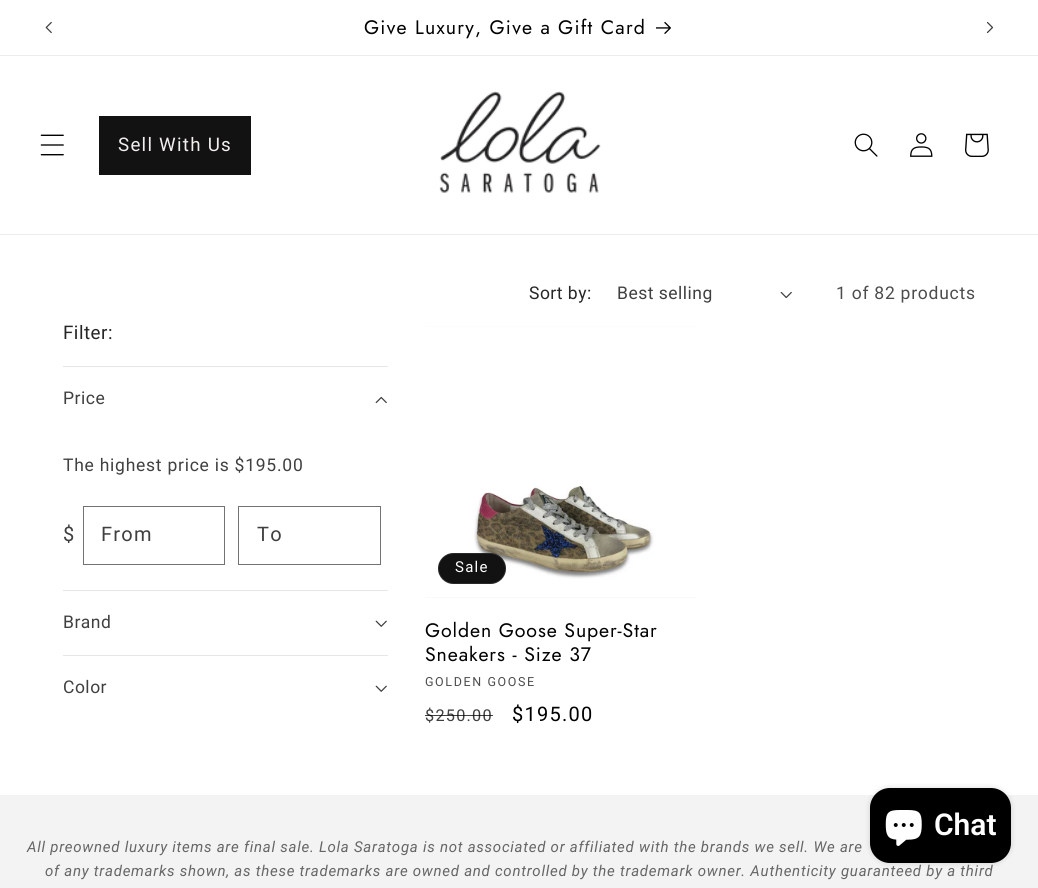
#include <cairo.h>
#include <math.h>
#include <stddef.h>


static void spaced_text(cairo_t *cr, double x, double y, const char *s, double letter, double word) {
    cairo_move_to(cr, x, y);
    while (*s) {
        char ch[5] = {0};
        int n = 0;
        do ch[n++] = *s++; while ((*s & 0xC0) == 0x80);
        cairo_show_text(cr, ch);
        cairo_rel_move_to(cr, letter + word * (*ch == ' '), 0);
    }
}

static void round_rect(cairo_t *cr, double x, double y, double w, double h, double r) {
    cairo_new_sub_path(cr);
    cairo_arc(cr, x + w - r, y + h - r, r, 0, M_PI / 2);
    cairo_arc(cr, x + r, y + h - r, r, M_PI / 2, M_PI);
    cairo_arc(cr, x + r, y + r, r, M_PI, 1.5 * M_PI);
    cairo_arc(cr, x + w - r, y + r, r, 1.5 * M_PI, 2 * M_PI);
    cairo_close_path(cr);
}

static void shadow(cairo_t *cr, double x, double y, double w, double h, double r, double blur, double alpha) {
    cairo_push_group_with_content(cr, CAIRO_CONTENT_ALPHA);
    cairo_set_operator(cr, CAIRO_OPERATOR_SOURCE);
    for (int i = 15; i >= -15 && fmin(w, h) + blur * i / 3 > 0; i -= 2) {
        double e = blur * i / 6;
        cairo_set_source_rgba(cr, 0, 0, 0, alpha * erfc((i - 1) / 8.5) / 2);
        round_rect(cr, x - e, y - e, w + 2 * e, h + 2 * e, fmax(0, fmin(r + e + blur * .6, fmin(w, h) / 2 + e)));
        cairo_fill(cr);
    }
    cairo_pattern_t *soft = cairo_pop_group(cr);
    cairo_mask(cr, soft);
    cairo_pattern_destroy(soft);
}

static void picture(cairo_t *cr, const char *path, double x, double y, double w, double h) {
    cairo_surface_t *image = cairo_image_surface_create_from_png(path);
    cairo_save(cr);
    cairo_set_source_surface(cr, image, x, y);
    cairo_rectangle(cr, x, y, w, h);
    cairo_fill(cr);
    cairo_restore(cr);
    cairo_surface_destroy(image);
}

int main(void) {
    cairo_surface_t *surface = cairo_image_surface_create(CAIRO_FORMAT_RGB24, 1038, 888);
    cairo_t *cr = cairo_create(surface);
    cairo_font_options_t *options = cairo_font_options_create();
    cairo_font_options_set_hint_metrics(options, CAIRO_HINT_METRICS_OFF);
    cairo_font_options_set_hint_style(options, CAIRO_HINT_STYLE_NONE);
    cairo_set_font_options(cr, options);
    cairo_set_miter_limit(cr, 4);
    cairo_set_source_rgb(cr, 1, 1, 1);
    cairo_paint(cr);
    cairo_set_source_rgb(cr, 0.922, 0.922, 0.922);
    cairo_rectangle(cr, 0, 55, 1038, 1);
    cairo_fill(cr);
    picture(cr, "img1.png", 45, 21, 7, 13);
    cairo_select_font_face(cr, "Jost", CAIRO_FONT_SLANT_NORMAL, CAIRO_FONT_WEIGHT_NORMAL);
    cairo_set_font_size(cr, 19.5);
    cairo_set_source_rgb(cr, 0, 0, 0);
    spaced_text(cr, 364, 34, "Give Luxury, Give a Gift Card", 1.25, 0);
    picture(cr, "img2.png", 656, 22, 15, 12);
    picture(cr, "img3.png", 986, 21, 8, 13);
    cairo_set_source_rgb(cr, 0.922, 0.922, 0.922);
    cairo_rectangle(cr, 0, 234, 1038, 1);
    cairo_fill(cr);
    picture(cr, "img4.png", 40, 134, 24, 22);
    cairo_set_source_rgb(cr, 0.071, 0.071, 0.071);
    cairo_rectangle(cr, 99, 116, 152, 59);
    cairo_fill(cr);
    cairo_select_font_face(cr, "Roboto", CAIRO_FONT_SLANT_NORMAL, CAIRO_FONT_WEIGHT_NORMAL);
    cairo_set_font_size(cr, 18.75);
    cairo_set_source_rgb(cr, 0.949, 0.941, 0.933);
    spaced_text(cr, 118, 151, "Sell With Us", 1.25, 0);
    picture(cr, "img5.png", 439, 91, 162, 102);
    picture(cr, "img6.png", 854, 133, 24, 24);
    picture(cr, "img7.png", 910, 133, 23, 24);
    picture(cr, "img8.png", 965, 133, 24, 24);
    cairo_set_font_size(cr, 17.5);
    cairo_set_source_rgb(cr, 0.149, 0.149, 0.149);
    spaced_text(cr, 529, 299, "Sort by:", 0.5, 0);
    cairo_set_source_rgb(cr, 0.251, 0.251, 0.251);
    spaced_text(cr, 617, 299, "Best selling", 0.5, 0);
    picture(cr, "img9.png", 780, 291, 12, 8);
    cairo_set_source_rgb(cr, 0.302, 0.302, 0.302);
    spaced_text(cr, 836, 299, "1 of 82 products", 0.75, 0);
    cairo_set_font_size(cr, 18.75);
    cairo_set_source_rgb(cr, 0.149, 0.149, 0.149);
    spaced_text(cr, 63, 339, "Filter:", 0.5, 0);
    cairo_set_source_rgb(cr, 0.902, 0.902, 0.902);
    cairo_rectangle(cr, 63, 366, 325, 1);
    cairo_fill(cr);
    cairo_set_font_size(cr, 17.5);
    cairo_set_source_rgb(cr, 0.251, 0.251, 0.251);
    spaced_text(cr, 63, 404, "Price", 0.5, 0);
    picture(cr, "img10.png", 375, 396, 12, 8);
    spaced_text(cr, 63, 471, "The highest price is $195.00", 0.75, 0);
    cairo_set_font_size(cr, 20);
    spaced_text(cr, 63, 541, "$", 0.75, 0);
    cairo_rectangle(cr, 83.5, 506.5, 141, 58);
    cairo_set_source_rgb(cr, 0.451, 0.451, 0.451);
    cairo_set_line_width(cr, 1);
    cairo_stroke(cr);
    cairo_set_source_rgb(cr, 0.251, 0.251, 0.251);
    spaced_text(cr, 101, 541, "From", 1.25, 0);
    cairo_rectangle(cr, 238.5, 506.5, 142, 58);
    cairo_set_source_rgb(cr, 0.451, 0.451, 0.451);
    cairo_stroke(cr);
    cairo_set_source_rgb(cr, 0.251, 0.251, 0.251);
    spaced_text(cr, 257, 541, "To", 1.25, 0);
    cairo_set_source_rgb(cr, 0.902, 0.902, 0.902);
    cairo_rectangle(cr, 63, 590, 325, 1);
    cairo_fill(cr);
    cairo_set_font_size(cr, 17.5);
    cairo_set_source_rgb(cr, 0.251, 0.251, 0.251);
    spaced_text(cr, 63, 628, "Brand", 0.5, 0);
    picture(cr, "img11.png", 375, 620, 12, 7);
    cairo_set_source_rgb(cr, 0.902, 0.902, 0.902);
    cairo_rectangle(cr, 63, 655, 325, 1);
    cairo_fill(cr);
    cairo_set_source_rgb(cr, 0.251, 0.251, 0.251);
    spaced_text(cr, 63, 693, "Color", 0.5, 0);
    picture(cr, "img11.png", 375, 685, 12, 7);
    cairo_set_source_rgb(cr, 0.953, 0.953, 0.953);
    cairo_rectangle(cr, 425, 326, 271, 272);
    cairo_fill(cr);
    picture(cr, "img12.png", 425, 326, 271, 272);
    cairo_set_source_rgb(cr, 0.071, 0.071, 0.071);
    round_rect(cr, 438, 553, 68, 31, 15.5);
    cairo_fill(cr);
    round_rect(cr, 438.5, 553.5, 67, 30, 15);
    cairo_set_source_rgba(cr, 1, 1, 1, 0.1);
    cairo_stroke(cr);
    cairo_set_font_size(cr, 15);
    cairo_set_source_rgb(cr, 1, 1, 1);
    spaced_text(cr, 455, 572, "Sale", 1.25, 0);
    cairo_select_font_face(cr, "Jost", CAIRO_FONT_SLANT_NORMAL, CAIRO_FONT_WEIGHT_NORMAL);
    cairo_set_font_size(cr, 19.5);
    cairo_set_source_rgb(cr, 0, 0, 0);
    spaced_text(cr, 425, 637, "Golden Goose Super-Star", 0.9, 0);
    spaced_text(cr, 425, 661, "Sneakers - Size 37", 0.9, 0);
    cairo_select_font_face(cr, "Roboto", CAIRO_FONT_SLANT_NORMAL, CAIRO_FONT_WEIGHT_NORMAL);
    cairo_set_font_size(cr, 12.5);
    cairo_set_source_rgb(cr, 0.302, 0.302, 0.302);
    spaced_text(cr, 425, 686, "GOLDEN GOOSE", 1.6, 0);
    cairo_set_font_size(cr, 16.25);
    cairo_set_source_rgb(cr, 0.251, 0.251, 0.251);
    spaced_text(cr, 425, 721, "$250.00", 1.25, 0);
    cairo_set_source_rgba(cr, 0, 0, 0, 0.75);
    cairo_rectangle(cr, 425, 715, 68, 1);
    cairo_fill(cr);
    cairo_set_font_size(cr, 20);
    cairo_set_source_rgb(cr, 0, 0, 0);
    spaced_text(cr, 512, 721, "$195.00", 1.25, 0);
    cairo_set_source_rgb(cr, 0.953, 0.953, 0.953);
    cairo_rectangle(cr, 0, 795, 1038, 93);
    cairo_fill(cr);
    cairo_set_source_rgb(cr, 0, 0, 0);
    shadow(cr, 870, 788, 141, 75, 20, 3, 0.15);
    cairo_set_source_rgb(cr, 0, 0, 0);
    round_rect(cr, 870, 788, 141, 75, 20);
    cairo_fill(cr);
    picture(cr, "img13.png", 885, 810, 37, 36);
    cairo_select_font_face(cr, "Roboto SemiBold", CAIRO_FONT_SLANT_NORMAL, CAIRO_FONT_WEIGHT_NORMAL);
    cairo_set_font_size(cr, 30);
    cairo_set_source_rgb(cr, 1, 1, 1);
    cairo_move_to(cr, 934, 835);
    cairo_show_text(cr, "Chat");
    cairo_select_font_face(cr, "Roboto", CAIRO_FONT_SLANT_ITALIC, CAIRO_FONT_WEIGHT_NORMAL);
    cairo_set_font_size(cr, 15);
    cairo_set_source_rgb(cr, 0.4, 0.4, 0.4);
    spaced_text(cr, 27, 852, "All preowned luxury items are final sale. Lola Saratoga is not associated or affiliated with the brands we sell. We are", 0.75, 0);
    spaced_text(cr, 45, 876, "of any trademarks shown, as these trademarks are owned and controlled by the trademark owner. Authenticity guaranteed by a third", 0.75, 0);
    cairo_surface_write_to_png(surface, "page.png");
    cairo_font_options_destroy(options);
    cairo_destroy(cr);
    cairo_surface_destroy(surface);
    return 0;
}
